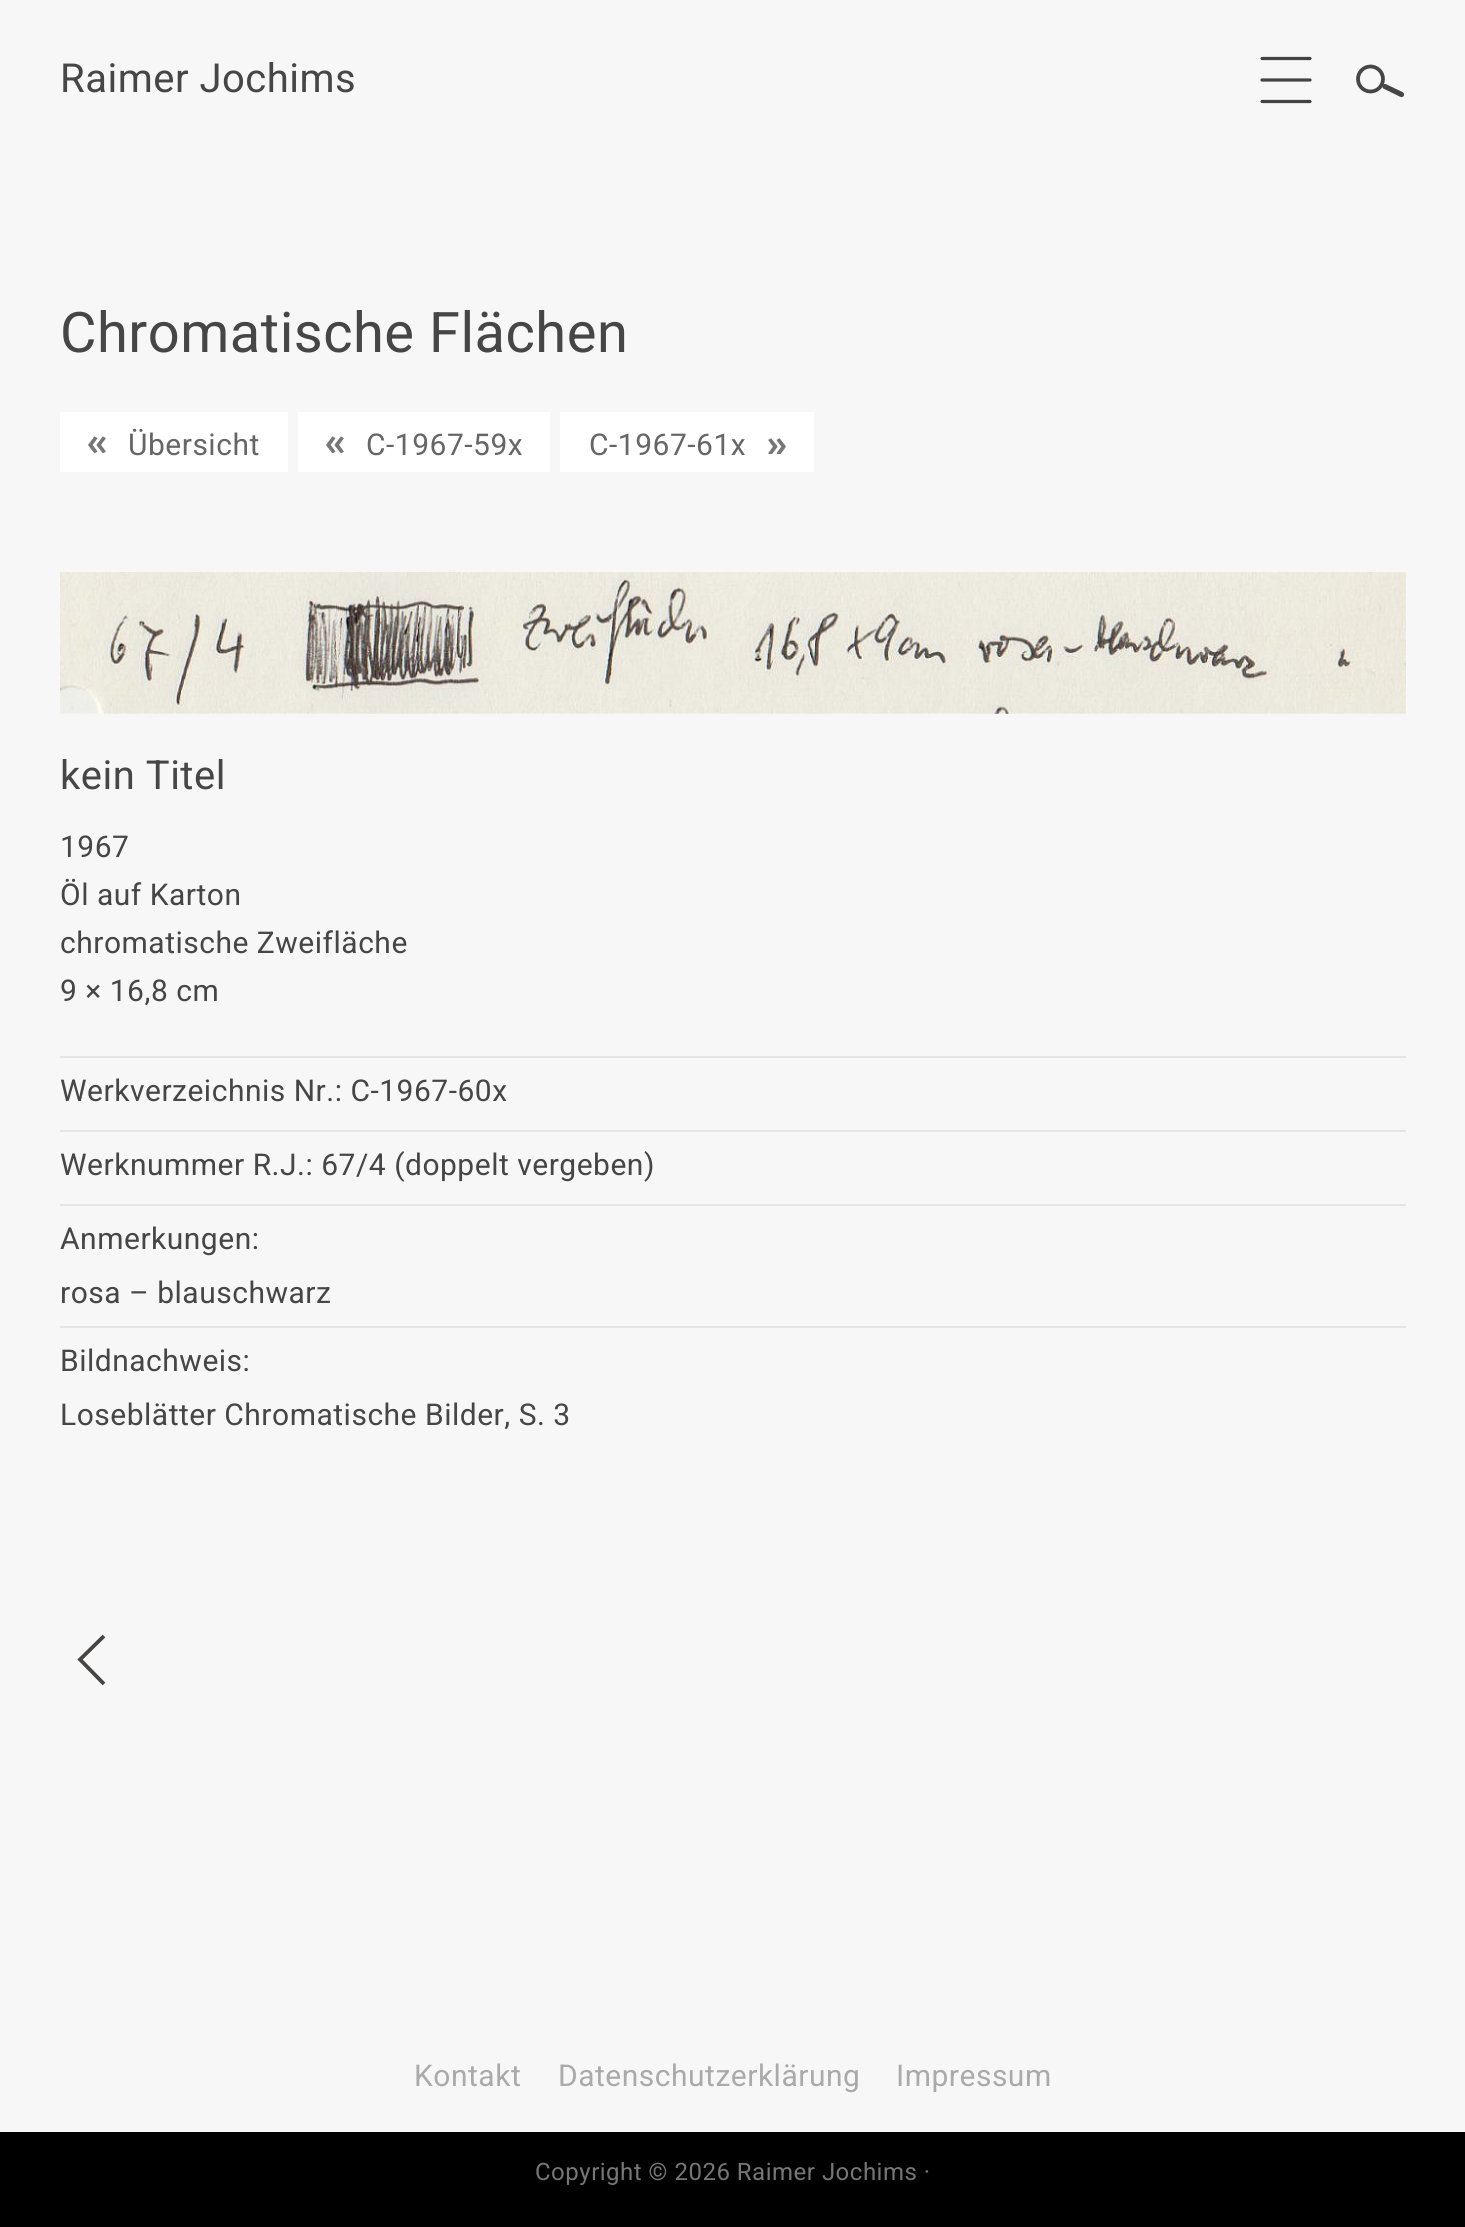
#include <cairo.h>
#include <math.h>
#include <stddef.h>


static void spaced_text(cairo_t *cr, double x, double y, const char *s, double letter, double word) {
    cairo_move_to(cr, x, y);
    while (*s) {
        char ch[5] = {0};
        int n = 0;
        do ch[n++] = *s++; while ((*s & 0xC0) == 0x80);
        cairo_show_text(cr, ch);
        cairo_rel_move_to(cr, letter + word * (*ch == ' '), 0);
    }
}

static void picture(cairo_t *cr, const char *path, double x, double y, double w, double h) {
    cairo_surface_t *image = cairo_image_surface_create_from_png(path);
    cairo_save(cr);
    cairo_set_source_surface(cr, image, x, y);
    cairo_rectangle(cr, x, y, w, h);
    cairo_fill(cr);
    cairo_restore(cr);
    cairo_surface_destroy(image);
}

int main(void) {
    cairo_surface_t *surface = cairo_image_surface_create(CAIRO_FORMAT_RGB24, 1465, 2227);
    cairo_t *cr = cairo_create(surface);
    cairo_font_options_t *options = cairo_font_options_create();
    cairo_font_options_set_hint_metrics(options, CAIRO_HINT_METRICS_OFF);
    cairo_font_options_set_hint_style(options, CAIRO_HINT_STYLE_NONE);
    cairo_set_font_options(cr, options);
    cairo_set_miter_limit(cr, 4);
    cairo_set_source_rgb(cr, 0.965, 0.965, 0.965);
    cairo_paint(cr);
    cairo_select_font_face(cr, "Heebo", CAIRO_FONT_SLANT_NORMAL, CAIRO_FONT_WEIGHT_NORMAL);
    cairo_set_font_size(cr, 40);
    cairo_set_source_rgb(cr, 0.275, 0.275, 0.275);
    spaced_text(cr, 60, 92, "Raimer Jochims", 0.5, 0);
    cairo_new_path(cr);
    cairo_move_to(cr, 1262, 58.5);
    cairo_line_to(cr, 1310, 58.5);
    cairo_move_to(cr, 1262, 80);
    cairo_line_to(cr, 1310, 80);
    cairo_move_to(cr, 1262, 101.5);
    cairo_line_to(cr, 1310, 101.5);
    cairo_set_source_rgb(cr, 0.259, 0.259, 0.259);
    cairo_set_line_width(cr, 3.2);
    cairo_set_line_cap(cr, CAIRO_LINE_CAP_ROUND);
    cairo_stroke(cr);
    cairo_arc(cr, 1370.5, 79, 12.5, 0, 2 * M_PI);
    cairo_set_source_rgb(cr, 0.275, 0.275, 0.275);
    cairo_set_line_width(cr, 3.8);
    cairo_set_line_cap(cr, CAIRO_LINE_CAP_BUTT);
    cairo_stroke(cr);
    cairo_new_path(cr);
    cairo_move_to(cr, 1385, 86.5);
    cairo_line_to(cr, 1401.5, 94.5);
    cairo_set_line_width(cr, 5.2);
    cairo_set_line_cap(cr, CAIRO_LINE_CAP_ROUND);
    cairo_stroke(cr);
    cairo_set_font_size(cr, 56);
    spaced_text(cr, 60, 352, "Chromatische Flächen", 0.5, 0);
    cairo_set_source_rgb(cr, 1, 1, 1);
    cairo_rectangle(cr, 60, 412, 228, 60);
    cairo_fill(cr);
    picture(cr, "img1.png", 88, 436, 18, 18);
    cairo_set_font_size(cr, 30);
    cairo_set_source_rgb(cr, 0.4, 0.4, 0.4);
    spaced_text(cr, 128, 455, "Übersicht", 0.5, 0);
    cairo_set_source_rgb(cr, 1, 1, 1);
    cairo_rectangle(cr, 298, 412, 252, 60);
    cairo_fill(cr);
    picture(cr, "img1.png", 326, 436, 18, 18);
    cairo_set_source_rgb(cr, 0.4, 0.4, 0.4);
    spaced_text(cr, 366, 455, "C-1967-59x", 0.5, 0);
    cairo_set_source_rgb(cr, 1, 1, 1);
    cairo_rectangle(cr, 560, 412, 254, 60);
    cairo_fill(cr);
    cairo_set_source_rgb(cr, 0.4, 0.4, 0.4);
    spaced_text(cr, 589, 455, "C-1967-61x", 0.5, 0);
    picture(cr, "img2.png", 768, 438, 18, 16);
    picture(cr, "img3.png", 60, 572, 1346, 142);
    cairo_set_font_size(cr, 40);
    cairo_set_source_rgb(cr, 0.275, 0.275, 0.275);
    spaced_text(cr, 60, 789, "kein Titel", 0.5, 0);
    cairo_set_font_size(cr, 30);
    spaced_text(cr, 60, 857, "1967", 0.5, 0);
    spaced_text(cr, 60, 905, "Öl auf Karton", 0.5, 0);
    spaced_text(cr, 60, 953, "chromatische Zweifläche", 0.5, 0);
    spaced_text(cr, 60, 1001, "9 × 16,8 cm", 0.5, 0);
    cairo_set_source_rgb(cr, 0.898, 0.898, 0.898);
    cairo_rectangle(cr, 60, 1056, 1346, 2);
    cairo_fill(cr);
    cairo_rectangle(cr, 60, 1130, 1346, 2);
    cairo_fill(cr);
    cairo_set_source_rgb(cr, 0.275, 0.275, 0.275);
    spaced_text(cr, 60, 1101, "Werkverzeichnis Nr.: C-1967-60x", 0.5, 0);
    cairo_set_source_rgb(cr, 0.898, 0.898, 0.898);
    cairo_rectangle(cr, 60, 1204, 1346, 2);
    cairo_fill(cr);
    cairo_set_source_rgb(cr, 0.275, 0.275, 0.275);
    spaced_text(cr, 60, 1175, "Werknummer R.J.: 67/4 (doppelt vergeben)", 0.5, 0);
    cairo_set_source_rgb(cr, 0.898, 0.898, 0.898);
    cairo_rectangle(cr, 60, 1326, 1346, 2);
    cairo_fill(cr);
    cairo_set_source_rgb(cr, 0.275, 0.275, 0.275);
    spaced_text(cr, 60, 1249, "Anmerkungen:", 0.5, 0);
    spaced_text(cr, 60, 1303, "rosa – blauschwarz", 0.5, 0);
    spaced_text(cr, 60, 1371, "Bildnachweis:", 0.5, 0);
    spaced_text(cr, 60, 1425, "Loseblätter Chromatische Bilder, S. 3", 0.5, 0);
    cairo_new_path(cr);
    cairo_move_to(cr, 104, 1684);
    cairo_line_to(cr, 80, 1659.5);
    cairo_line_to(cr, 104, 1636);
    cairo_set_source_rgb(cr, 0.275, 0.271, 0.263);
    cairo_set_line_width(cr, 3.8);
    cairo_set_line_cap(cr, CAIRO_LINE_CAP_BUTT);
    cairo_stroke(cr);
    cairo_set_source_rgb(cr, 0.667, 0.667, 0.667);
    spaced_text(cr, 414, 2086, "Kontakt", 0.5, 0);
    spaced_text(cr, 558, 2086, "Datenschutzerklärung", 0.5, 0);
    spaced_text(cr, 896, 2086, "Impressum", 0.5, 0);
    cairo_set_source_rgb(cr, 0, 0, 0);
    cairo_rectangle(cr, 0, 2132, 1465, 95);
    cairo_fill(cr);
    cairo_set_font_size(cr, 24);
    cairo_set_source_rgb(cr, 0.463, 0.463, 0.463);
    spaced_text(cr, 535, 2180, "Copyright © 2026 Raimer Jochims ·", 0.5, 0);
    cairo_surface_write_to_png(surface, "page.png");
    cairo_font_options_destroy(options);
    cairo_destroy(cr);
    cairo_surface_destroy(surface);
    return 0;
}
